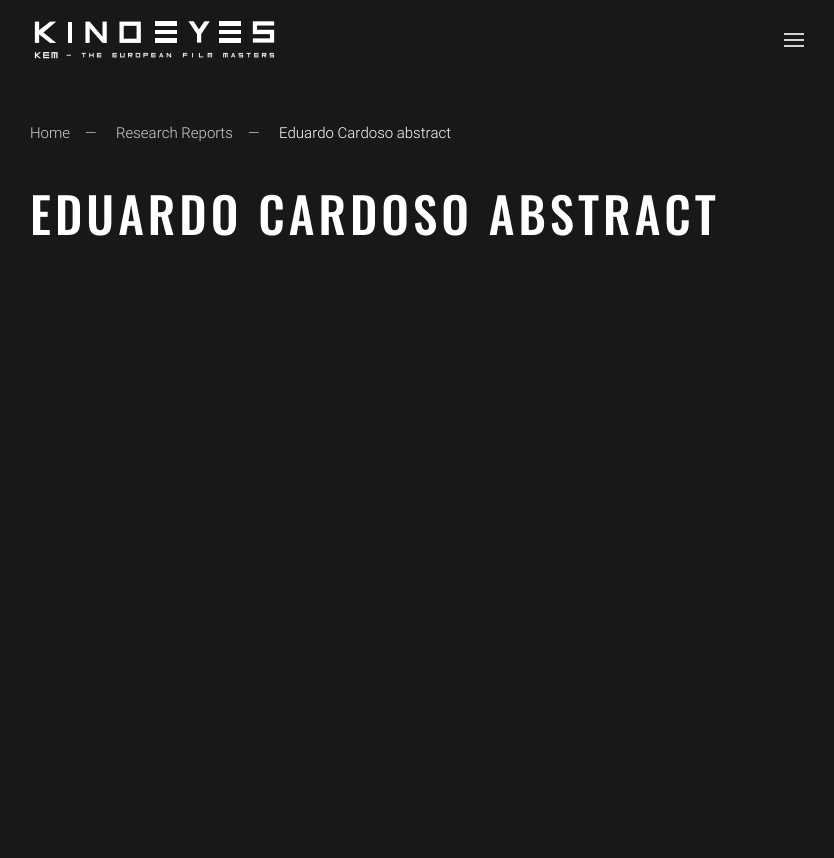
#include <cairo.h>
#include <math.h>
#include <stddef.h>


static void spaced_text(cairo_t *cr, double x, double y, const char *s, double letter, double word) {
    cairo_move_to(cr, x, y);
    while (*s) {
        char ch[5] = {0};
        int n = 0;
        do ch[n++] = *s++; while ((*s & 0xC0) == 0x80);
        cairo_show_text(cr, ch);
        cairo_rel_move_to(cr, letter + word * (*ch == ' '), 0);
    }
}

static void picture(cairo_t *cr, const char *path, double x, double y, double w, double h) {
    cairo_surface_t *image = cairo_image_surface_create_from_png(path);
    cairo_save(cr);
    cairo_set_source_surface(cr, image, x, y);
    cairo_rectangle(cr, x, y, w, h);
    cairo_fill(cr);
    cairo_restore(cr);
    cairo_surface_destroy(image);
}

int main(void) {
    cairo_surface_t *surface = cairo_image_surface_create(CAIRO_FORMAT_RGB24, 834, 858);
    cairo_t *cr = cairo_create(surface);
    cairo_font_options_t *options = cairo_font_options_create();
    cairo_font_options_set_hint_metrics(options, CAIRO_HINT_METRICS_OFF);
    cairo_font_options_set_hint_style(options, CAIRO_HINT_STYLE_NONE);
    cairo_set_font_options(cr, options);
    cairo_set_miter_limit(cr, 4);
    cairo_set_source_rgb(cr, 0.094, 0.094, 0.094);
    cairo_paint(cr);
    picture(cr, "img1.png", 34, 21, 241, 38);
    cairo_set_source_rgb(cr, 0.82, 0.82, 0.82);
    cairo_rectangle(cr, 784, 33, 20, 2);
    cairo_fill(cr);
    cairo_rectangle(cr, 784, 39, 20, 2);
    cairo_fill(cr);
    cairo_rectangle(cr, 784, 45, 20, 2);
    cairo_fill(cr);
    cairo_select_font_face(cr, "Roboto Light", CAIRO_FONT_SLANT_NORMAL, CAIRO_FONT_WEIGHT_NORMAL);
    cairo_set_font_size(cr, 15);
    cairo_move_to(cr, 30, 138);
    cairo_show_text(cr, "Home");
    cairo_move_to(cr, 85, 138);
    cairo_show_text(cr, "—");
    cairo_move_to(cr, 116, 138);
    cairo_show_text(cr, "Research Reports");
    cairo_move_to(cr, 248, 138);
    cairo_show_text(cr, "—");
    cairo_set_source_rgb(cr, 1, 1, 1);
    cairo_move_to(cr, 279, 138);
    cairo_show_text(cr, "Eduardo Cardoso abstract");
    cairo_select_font_face(cr, "Oswald Medium", CAIRO_FONT_SLANT_NORMAL, CAIRO_FONT_WEIGHT_NORMAL);
    cairo_set_font_size(cr, 49.1);
    spaced_text(cr, 30, 235, "EDUARDO CARDOSO ABSTRACT", 4, 0);
    cairo_surface_write_to_png(surface, "page.png");
    cairo_font_options_destroy(options);
    cairo_destroy(cr);
    cairo_surface_destroy(surface);
    return 0;
}
